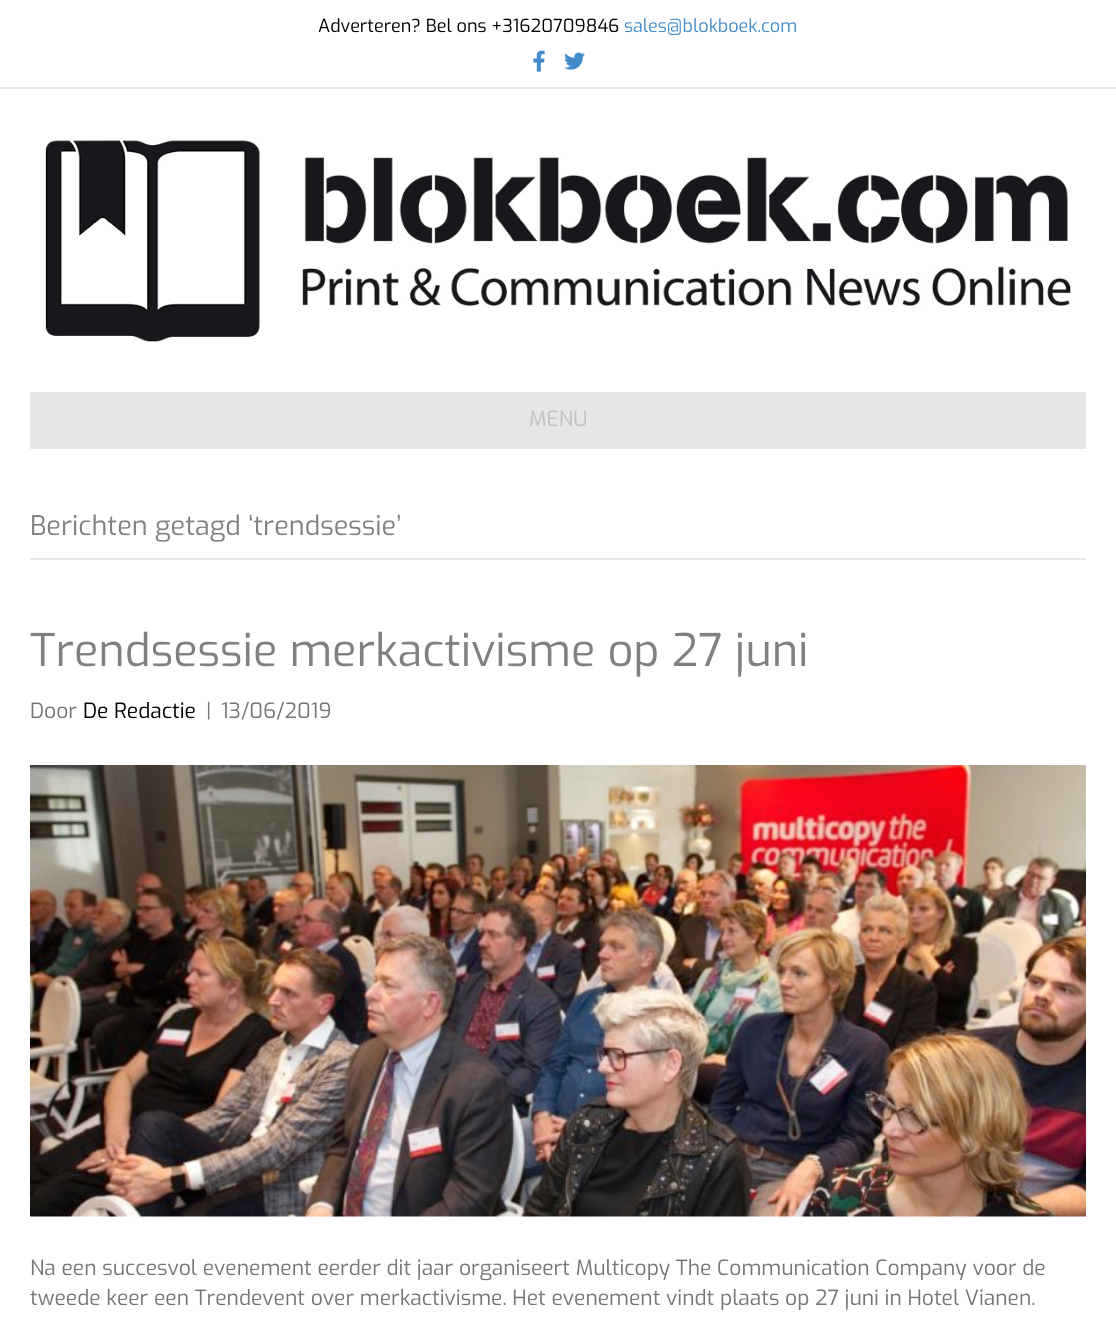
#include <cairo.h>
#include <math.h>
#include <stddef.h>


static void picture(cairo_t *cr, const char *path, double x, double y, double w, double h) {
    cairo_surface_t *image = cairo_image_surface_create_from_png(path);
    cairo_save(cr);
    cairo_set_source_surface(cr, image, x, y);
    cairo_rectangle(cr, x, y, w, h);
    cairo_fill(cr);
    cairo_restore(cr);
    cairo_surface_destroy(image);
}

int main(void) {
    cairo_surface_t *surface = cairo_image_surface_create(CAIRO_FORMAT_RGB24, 1116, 1323);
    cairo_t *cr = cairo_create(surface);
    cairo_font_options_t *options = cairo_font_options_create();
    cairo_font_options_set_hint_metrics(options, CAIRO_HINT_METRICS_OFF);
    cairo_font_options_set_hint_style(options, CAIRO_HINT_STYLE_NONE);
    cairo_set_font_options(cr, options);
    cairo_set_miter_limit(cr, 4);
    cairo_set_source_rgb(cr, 1, 1, 1);
    cairo_paint(cr);
    cairo_set_source_rgb(cr, 0.902, 0.902, 0.902);
    cairo_rectangle(cr, 0, 87, 1116, 2);
    cairo_fill(cr);
    cairo_select_font_face(cr, "Exo", CAIRO_FONT_SLANT_NORMAL, CAIRO_FONT_WEIGHT_NORMAL);
    cairo_set_font_size(cr, 18);
    cairo_set_source_rgb(cr, 0, 0, 0);
    cairo_move_to(cr, 318, 32);
    cairo_show_text(cr, "Adverteren? Bel ons +31620709846");
    cairo_set_source_rgb(cr, 0.259, 0.545, 0.792);
    cairo_move_to(cr, 624, 32);
    cairo_show_text(cr, "sales@blokboek.com");
    picture(cr, "img1.png", 533, 50, 12, 22);
    picture(cr, "img2.png", 564, 52, 21, 18);
    picture(cr, "img3.png", 45, 140, 1026, 202);
    cairo_set_source_rgb(cr, 0.902, 0.902, 0.902);
    cairo_rectangle(cr, 30, 392, 1056, 57);
    cairo_fill(cr);
    cairo_set_font_size(cr, 21);
    cairo_set_source_rgb(cr, 0.753, 0.753, 0.753);
    cairo_move_to(cr, 529, 426);
    cairo_show_text(cr, "MENU");
    cairo_set_source_rgb(cr, 0.902, 0.902, 0.902);
    cairo_rectangle(cr, 30, 558, 1056, 2);
    cairo_fill(cr);
    cairo_set_font_size(cr, 27);
    cairo_set_source_rgb(cr, 0.502, 0.502, 0.502);
    cairo_move_to(cr, 30, 535);
    cairo_show_text(cr, "Berichten getagd ‘trendsessie’");
    cairo_set_font_size(cr, 45);
    cairo_move_to(cr, 30, 666);
    cairo_show_text(cr, "Trendsessie merkactivisme op 27 juni");
    cairo_set_font_size(cr, 21);
    cairo_set_source_rgb(cr, 0.459, 0.459, 0.459);
    cairo_move_to(cr, 30, 718);
    cairo_show_text(cr, "Door");
    cairo_set_source_rgb(cr, 0, 0, 0);
    cairo_move_to(cr, 83, 718);
    cairo_show_text(cr, "De Redactie");
    cairo_set_source_rgb(cr, 0.459, 0.459, 0.459);
    cairo_move_to(cr, 206, 718);
    cairo_show_text(cr, "|");
    cairo_move_to(cr, 221, 718);
    cairo_show_text(cr, "13/06/2019");
    picture(cr, "img4.png", 30, 765, 1056, 452);
    cairo_move_to(cr, 30, 1275);
    cairo_show_text(cr, "Na een succesvol evenement eerder dit jaar organiseert Multicopy The Communication Company voor de");
    cairo_move_to(cr, 30, 1305);
    cairo_show_text(cr, "tweede keer een Trendevent over merkactivisme. Het evenement vindt plaats op 27 juni in Hotel Vianen.");
    cairo_surface_write_to_png(surface, "page.png");
    cairo_font_options_destroy(options);
    cairo_destroy(cr);
    cairo_surface_destroy(surface);
    return 0;
}
